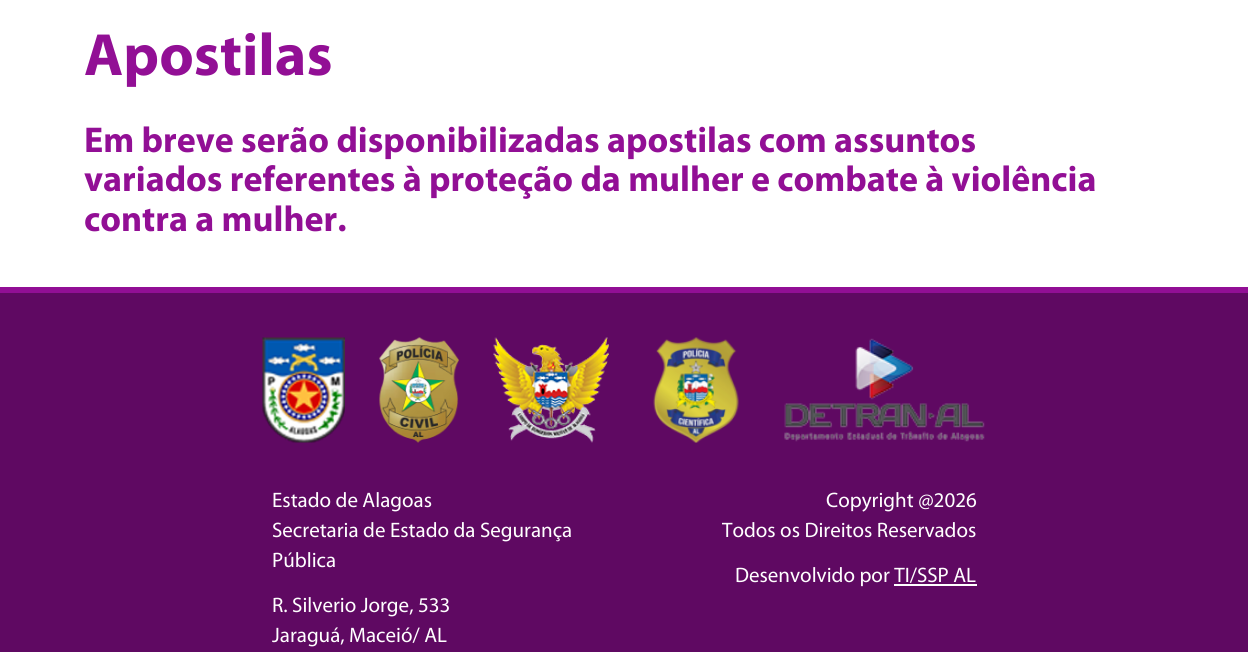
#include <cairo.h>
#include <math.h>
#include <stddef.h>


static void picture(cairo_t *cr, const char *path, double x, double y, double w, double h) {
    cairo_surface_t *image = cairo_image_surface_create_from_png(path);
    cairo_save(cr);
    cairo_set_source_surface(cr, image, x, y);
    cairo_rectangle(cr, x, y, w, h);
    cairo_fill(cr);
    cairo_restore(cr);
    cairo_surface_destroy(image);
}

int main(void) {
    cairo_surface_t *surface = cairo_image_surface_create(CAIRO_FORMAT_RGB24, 1248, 652);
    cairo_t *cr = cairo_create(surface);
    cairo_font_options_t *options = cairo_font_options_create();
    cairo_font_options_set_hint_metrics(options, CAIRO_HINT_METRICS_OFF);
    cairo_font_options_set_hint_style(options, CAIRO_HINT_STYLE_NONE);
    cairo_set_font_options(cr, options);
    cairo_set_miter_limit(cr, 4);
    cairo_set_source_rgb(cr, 1, 1, 1);
    cairo_paint(cr);
    cairo_select_font_face(cr, "Myriad", CAIRO_FONT_SLANT_NORMAL, CAIRO_FONT_WEIGHT_BOLD);
    cairo_set_font_size(cr, 60);
    cairo_set_source_rgb(cr, 0.573, 0.059, 0.584);
    cairo_move_to(cr, 84, 75);
    cairo_show_text(cr, "Apostilas");
    cairo_set_font_size(cr, 36);
    cairo_move_to(cr, 84, 152);
    cairo_show_text(cr, "Em breve serão disponibilizadas apostilas com assuntos");
    cairo_move_to(cr, 84, 191);
    cairo_show_text(cr, "variados referentes à proteção da mulher e combate à violência");
    cairo_move_to(cr, 84, 231);
    cairo_show_text(cr, "contra a mulher.");
    cairo_set_source_rgb(cr, 0.373, 0.039, 0.384);
    cairo_rectangle(cr, 0, 293, 1248, 359);
    cairo_fill(cr);
    cairo_set_source_rgb(cr, 0.573, 0.059, 0.584);
    cairo_rectangle(cr, 0, 287, 1248, 6);
    cairo_fill(cr);
    picture(cr, "img1.png", 262, 337, 83, 106);
    picture(cr, "img2.png", 379, 337, 80, 106);
    picture(cr, "img3.png", 493, 337, 116, 106);
    picture(cr, "img4.png", 653, 337, 86, 106);
    picture(cr, "img5.png", 784, 338, 201, 104);
    cairo_select_font_face(cr, "Myriad", CAIRO_FONT_SLANT_NORMAL, CAIRO_FONT_WEIGHT_NORMAL);
    cairo_set_font_size(cr, 21);
    cairo_set_source_rgb(cr, 1, 1, 1);
    cairo_move_to(cr, 272, 507);
    cairo_show_text(cr, "Estado de Alagoas");
    cairo_move_to(cr, 272, 537);
    cairo_show_text(cr, "Secretaria de Estado da Segurança");
    cairo_move_to(cr, 272, 567);
    cairo_show_text(cr, "Pública");
    cairo_move_to(cr, 272, 612);
    cairo_show_text(cr, "R. Silverio Jorge, 533");
    cairo_move_to(cr, 272, 642);
    cairo_show_text(cr, "Jaraguá, Maceió/ AL");
    cairo_move_to(cr, 826, 507);
    cairo_show_text(cr, "Copyright @2026");
    cairo_move_to(cr, 722, 537);
    cairo_show_text(cr, "Todos os Direitos Reservados");
    cairo_move_to(cr, 735, 582);
    cairo_show_text(cr, "Desenvolvido por TI/SSP AL");
    cairo_rectangle(cr, 894, 584, 83, 2);
    cairo_fill(cr);
    cairo_surface_write_to_png(surface, "page.png");
    cairo_font_options_destroy(options);
    cairo_destroy(cr);
    cairo_surface_destroy(surface);
    return 0;
}
